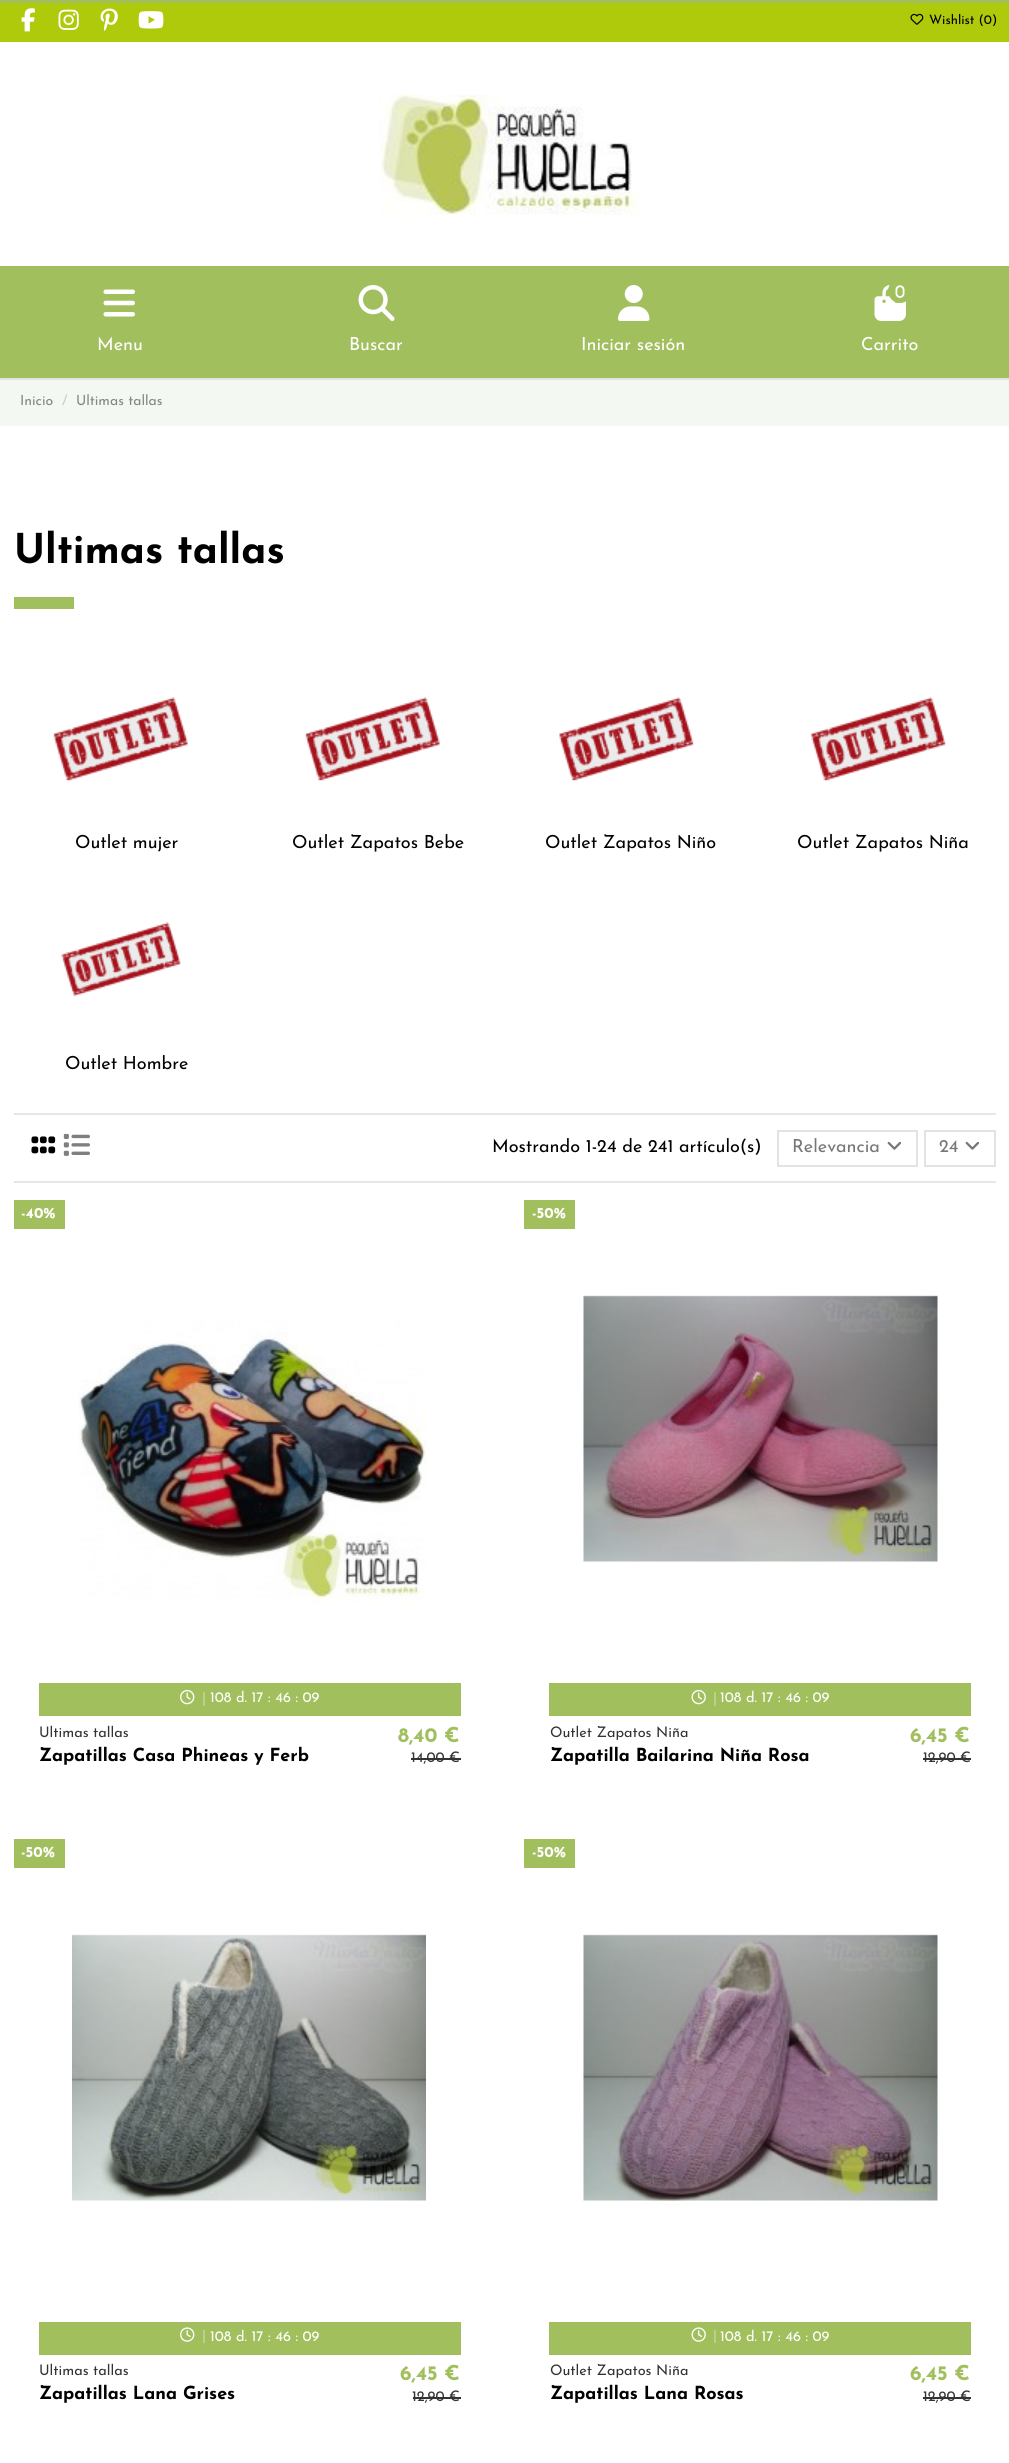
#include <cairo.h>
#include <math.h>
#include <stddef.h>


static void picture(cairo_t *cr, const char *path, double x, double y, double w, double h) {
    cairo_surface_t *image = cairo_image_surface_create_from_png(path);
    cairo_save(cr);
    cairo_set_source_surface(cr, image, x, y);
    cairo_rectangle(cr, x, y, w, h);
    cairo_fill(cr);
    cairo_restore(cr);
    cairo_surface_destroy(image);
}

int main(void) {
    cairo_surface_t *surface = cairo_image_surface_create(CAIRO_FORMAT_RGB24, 1009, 2463);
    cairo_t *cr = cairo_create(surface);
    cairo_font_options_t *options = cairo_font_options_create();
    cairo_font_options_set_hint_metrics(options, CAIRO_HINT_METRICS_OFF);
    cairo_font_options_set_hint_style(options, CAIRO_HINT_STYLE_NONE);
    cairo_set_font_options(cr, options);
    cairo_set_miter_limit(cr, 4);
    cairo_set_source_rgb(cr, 1, 1, 1);
    cairo_paint(cr);
    cairo_set_source_rgb(cr, 0.635, 0.749, 0.369);
    cairo_rectangle(cr, 0, 0, 1009, 3);
    cairo_fill(cr);
    cairo_set_source_rgb(cr, 0.686, 0.792, 0.043);
    cairo_rectangle(cr, 0, 3, 1009, 39);
    cairo_fill(cr);
    picture(cr, "img1.png", 21, 8, 14, 24);
    picture(cr, "img2.png", 58, 9, 21, 21);
    picture(cr, "img3.png", 100, 8, 18, 23);
    picture(cr, "img4.png", 138, 11, 26, 18);
    picture(cr, "img5.png", 910, 13, 14, 12);
    cairo_select_font_face(cr, "Josefin Sans", CAIRO_FONT_SLANT_NORMAL, CAIRO_FONT_WEIGHT_NORMAL);
    cairo_set_font_size(cr, 13);
    cairo_set_source_rgb(cr, 0, 0, 0);
    cairo_move_to(cr, 929, 24);
    cairo_show_text(cr, "Wishlist (0)");
    cairo_set_source_rgb(cr, 0.89, 0.89, 0.89);
    cairo_rectangle(cr, 0, 378, 1009, 2);
    cairo_fill(cr);
    picture(cr, "img6.png", 379, 94, 264, 121);
    cairo_set_source_rgb(cr, 0.635, 0.749, 0.369);
    cairo_rectangle(cr, 0, 266, 1009, 112);
    cairo_fill(cr);
    picture(cr, "img7.png", 103, 289, 32, 28);
    cairo_set_font_size(cr, 18);
    cairo_set_source_rgb(cr, 1, 1, 1);
    cairo_move_to(cr, 97, 350);
    cairo_show_text(cr, "Menu");
    picture(cr, "img8.png", 358, 285, 37, 36);
    cairo_move_to(cr, 349, 350);
    cairo_show_text(cr, "Buscar");
    picture(cr, "img9.png", 618, 285, 32, 36);
    cairo_move_to(cr, 581, 350);
    cairo_show_text(cr, "Iniciar sesión");
    picture(cr, "img11.png", 874, 285, 32, 36);
    cairo_set_source_rgb(cr, 0.635, 0.749, 0.369);
    cairo_arc(cr, 900, 291, 12, 0, 2 * M_PI);
    cairo_fill(cr);
    picture(cr, "img10.png", 895, 285, 10, 13);
    cairo_set_source_rgb(cr, 1, 1, 1);
    cairo_move_to(cr, 861, 350);
    cairo_show_text(cr, "Carrito");
    cairo_set_source_rgb(cr, 0.957, 0.969, 0.949);
    cairo_rectangle(cr, 0, 380, 1009, 46);
    cairo_fill(cr);
    cairo_set_font_size(cr, 14);
    cairo_set_source_rgb(cr, 0.522, 0.522, 0.522);
    cairo_move_to(cr, 20, 405);
    cairo_show_text(cr, "Inicio");
    cairo_set_source_rgb(cr, 0.784, 0.788, 0.776);
    cairo_move_to(cr, 62, 405);
    cairo_show_text(cr, "/");
    cairo_set_source_rgb(cr, 0.522, 0.522, 0.522);
    cairo_move_to(cr, 76, 405);
    cairo_show_text(cr, "Ultimas tallas");
    cairo_select_font_face(cr, "Josefin Sans", CAIRO_FONT_SLANT_NORMAL, CAIRO_FONT_WEIGHT_BOLD);
    cairo_set_font_size(cr, 41);
    cairo_set_source_rgb(cr, 0, 0, 0);
    cairo_move_to(cr, 14, 563);
    cairo_show_text(cr, "Ultimas tallas");
    cairo_set_source_rgb(cr, 0.635, 0.749, 0.369);
    cairo_rectangle(cr, 14, 597, 60, 12);
    cairo_fill(cr);
    picture(cr, "img12.png", 53, 697, 135, 84);
    cairo_select_font_face(cr, "Josefin Sans", CAIRO_FONT_SLANT_NORMAL, CAIRO_FONT_WEIGHT_NORMAL);
    cairo_set_font_size(cr, 18);
    cairo_set_source_rgb(cr, 0, 0, 0);
    cairo_move_to(cr, 75, 848);
    cairo_show_text(cr, "Outlet mujer");
    picture(cr, "img13.png", 305, 697, 135, 84);
    cairo_move_to(cr, 292, 848);
    cairo_show_text(cr, "Outlet Zapatos Bebe");
    picture(cr, "img14.png", 559, 697, 135, 84);
    cairo_move_to(cr, 545, 848);
    cairo_show_text(cr, "Outlet Zapatos Niño");
    picture(cr, "img15.png", 811, 697, 135, 84);
    cairo_move_to(cr, 797, 848);
    cairo_show_text(cr, "Outlet Zapatos Niña");
    picture(cr, "img16.png", 61, 922, 120, 75);
    cairo_move_to(cr, 65, 1069);
    cairo_show_text(cr, "Outlet Hombre");
    cairo_set_source_rgb(cr, 0.906, 0.906, 0.906);
    cairo_rectangle(cr, 14, 1113, 982, 2);
    cairo_fill(cr);
    cairo_rectangle(cr, 14, 1181, 982, 2);
    cairo_fill(cr);
    picture(cr, "img17.png", 31, 1136, 25, 18);
    picture(cr, "img18.png", 63, 1133, 27, 23);
    cairo_set_source_rgb(cr, 0, 0, 0);
    cairo_move_to(cr, 492, 1152);
    cairo_show_text(cr, "Mostrando 1-24 de 241 artículo(s)");
    cairo_rectangle(cr, 778, 1131, 139, 35);
    cairo_set_source_rgb(cr, 0.89, 0.89, 0.89);
    cairo_stroke(cr);
    cairo_set_source_rgb(cr, 0.467, 0.467, 0.467);
    cairo_move_to(cr, 792, 1152);
    cairo_show_text(cr, "Relevancia");
    picture(cr, "img19.png", 887, 1141, 15, 9);
    cairo_rectangle(cr, 925, 1131, 70, 35);
    cairo_set_source_rgb(cr, 0.89, 0.89, 0.89);
    cairo_stroke(cr);
    cairo_set_source_rgb(cr, 0.467, 0.467, 0.467);
    cairo_move_to(cr, 939, 1152);
    cairo_show_text(cr, "24");
    picture(cr, "img19.png", 965, 1141, 15, 9);
    cairo_set_source_rgb(cr, 0.635, 0.749, 0.369);
    cairo_rectangle(cr, 14, 1200, 51, 29);
    cairo_fill(cr);
    cairo_select_font_face(cr, "Josefin Sans", CAIRO_FONT_SLANT_NORMAL, CAIRO_FONT_WEIGHT_BOLD);
    cairo_set_font_size(cr, 15);
    cairo_set_source_rgb(cr, 1, 1, 1);
    cairo_move_to(cr, 21, 1218);
    cairo_show_text(cr, "-40%");
    picture(cr, "img20.png", 78, 1320, 348, 285);
    cairo_set_source_rgb(cr, 0.635, 0.749, 0.369);
    cairo_rectangle(cr, 39, 1683, 422, 33);
    cairo_fill(cr);
    cairo_set_source_rgb(cr, 0.733, 0.816, 0.537);
    cairo_rectangle(cr, 203, 1692, 2, 14);
    cairo_fill(cr);
    picture(cr, "img21.png", 180, 1689, 15, 16);
    cairo_select_font_face(cr, "Josefin Sans", CAIRO_FONT_SLANT_NORMAL, CAIRO_FONT_WEIGHT_NORMAL);
    cairo_set_font_size(cr, 14.5);
    cairo_set_source_rgb(cr, 1, 1, 1);
    cairo_move_to(cr, 210, 1702);
    cairo_show_text(cr, "108 d. 17 : 46 : 09");
    cairo_set_source_rgb(cr, 0.2, 0.2, 0.2);
    cairo_move_to(cr, 39, 1737);
    cairo_show_text(cr, "Ultimas tallas");
    cairo_select_font_face(cr, "Josefin Sans", CAIRO_FONT_SLANT_NORMAL, CAIRO_FONT_WEIGHT_BOLD);
    cairo_set_font_size(cr, 18);
    cairo_set_source_rgb(cr, 0, 0, 0);
    cairo_move_to(cr, 39, 1761);
    cairo_show_text(cr, "Zapatillas Casa Phineas y Ferb");
    cairo_set_font_size(cr, 20.5);
    cairo_set_source_rgb(cr, 0.635, 0.749, 0.369);
    cairo_move_to(cr, 398, 1742);
    cairo_show_text(cr, "8,40 €");
    cairo_select_font_face(cr, "Josefin Sans", CAIRO_FONT_SLANT_NORMAL, CAIRO_FONT_WEIGHT_NORMAL);
    cairo_set_font_size(cr, 14.5);
    cairo_set_source_rgb(cr, 0.2, 0.2, 0.2);
    cairo_move_to(cr, 411, 1762);
    cairo_show_text(cr, "14,00 €");
    cairo_rectangle(cr, 411, 1758, 50, 2);
    cairo_fill(cr);
    cairo_set_source_rgb(cr, 0.635, 0.749, 0.369);
    cairo_rectangle(cr, 524, 1200, 51, 29);
    cairo_fill(cr);
    cairo_select_font_face(cr, "Josefin Sans", CAIRO_FONT_SLANT_NORMAL, CAIRO_FONT_WEIGHT_BOLD);
    cairo_set_font_size(cr, 15);
    cairo_set_source_rgb(cr, 1, 1, 1);
    cairo_move_to(cr, 532, 1218);
    cairo_show_text(cr, "-50%");
    picture(cr, "img22.png", 583, 1295, 355, 267);
    cairo_set_source_rgb(cr, 0.635, 0.749, 0.369);
    cairo_rectangle(cr, 549, 1683, 422, 33);
    cairo_fill(cr);
    cairo_set_source_rgb(cr, 0.733, 0.816, 0.537);
    cairo_rectangle(cr, 714, 1692, 2, 14);
    cairo_fill(cr);
    picture(cr, "img23.png", 691, 1689, 15, 16);
    cairo_select_font_face(cr, "Josefin Sans", CAIRO_FONT_SLANT_NORMAL, CAIRO_FONT_WEIGHT_NORMAL);
    cairo_set_font_size(cr, 14.5);
    cairo_set_source_rgb(cr, 1, 1, 1);
    cairo_move_to(cr, 720, 1702);
    cairo_show_text(cr, "108 d. 17 : 46 : 09");
    cairo_set_source_rgb(cr, 0.2, 0.2, 0.2);
    cairo_move_to(cr, 550, 1737);
    cairo_show_text(cr, "Outlet Zapatos Niña");
    cairo_select_font_face(cr, "Josefin Sans", CAIRO_FONT_SLANT_NORMAL, CAIRO_FONT_WEIGHT_BOLD);
    cairo_set_font_size(cr, 18);
    cairo_set_source_rgb(cr, 0, 0, 0);
    cairo_move_to(cr, 550, 1761);
    cairo_show_text(cr, "Zapatilla Bailarina Niña Rosa");
    cairo_set_font_size(cr, 20.5);
    cairo_set_source_rgb(cr, 0.635, 0.749, 0.369);
    cairo_move_to(cr, 910, 1742);
    cairo_show_text(cr, "6,45 €");
    cairo_select_font_face(cr, "Josefin Sans", CAIRO_FONT_SLANT_NORMAL, CAIRO_FONT_WEIGHT_NORMAL);
    cairo_set_font_size(cr, 14.5);
    cairo_set_source_rgb(cr, 0.2, 0.2, 0.2);
    cairo_move_to(cr, 923, 1762);
    cairo_show_text(cr, "12,90 €");
    cairo_rectangle(cr, 923, 1758, 48, 2);
    cairo_fill(cr);
    cairo_set_source_rgb(cr, 0.635, 0.749, 0.369);
    cairo_rectangle(cr, 14, 1839, 51, 29);
    cairo_fill(cr);
    cairo_select_font_face(cr, "Josefin Sans", CAIRO_FONT_SLANT_NORMAL, CAIRO_FONT_WEIGHT_BOLD);
    cairo_set_font_size(cr, 15);
    cairo_set_source_rgb(cr, 1, 1, 1);
    cairo_move_to(cr, 21, 1857);
    cairo_show_text(cr, "-50%");
    picture(cr, "img24.png", 72, 1934, 354, 268);
    cairo_set_source_rgb(cr, 0.635, 0.749, 0.369);
    cairo_rectangle(cr, 39, 2322, 422, 33);
    cairo_fill(cr);
    cairo_set_source_rgb(cr, 0.733, 0.816, 0.537);
    cairo_rectangle(cr, 203, 2330, 2, 13);
    cairo_fill(cr);
    picture(cr, "img25.png", 180, 2327, 15, 15);
    cairo_select_font_face(cr, "Josefin Sans", CAIRO_FONT_SLANT_NORMAL, CAIRO_FONT_WEIGHT_NORMAL);
    cairo_set_font_size(cr, 14.5);
    cairo_set_source_rgb(cr, 1, 1, 1);
    cairo_move_to(cr, 210, 2341);
    cairo_show_text(cr, "108 d. 17 : 46 : 09");
    cairo_set_source_rgb(cr, 0.2, 0.2, 0.2);
    cairo_move_to(cr, 39, 2375);
    cairo_show_text(cr, "Ultimas tallas");
    cairo_select_font_face(cr, "Josefin Sans", CAIRO_FONT_SLANT_NORMAL, CAIRO_FONT_WEIGHT_BOLD);
    cairo_set_font_size(cr, 18);
    cairo_set_source_rgb(cr, 0, 0, 0);
    cairo_move_to(cr, 39, 2399);
    cairo_show_text(cr, "Zapatillas Lana Grises");
    cairo_set_font_size(cr, 20.5);
    cairo_set_source_rgb(cr, 0.635, 0.749, 0.369);
    cairo_move_to(cr, 400, 2380);
    cairo_show_text(cr, "6,45 €");
    cairo_select_font_face(cr, "Josefin Sans", CAIRO_FONT_SLANT_NORMAL, CAIRO_FONT_WEIGHT_NORMAL);
    cairo_set_font_size(cr, 14.5);
    cairo_set_source_rgb(cr, 0.2, 0.2, 0.2);
    cairo_move_to(cr, 412, 2401);
    cairo_show_text(cr, "12,90 €");
    cairo_rectangle(cr, 413, 2397, 48, 2);
    cairo_fill(cr);
    cairo_set_source_rgb(cr, 0.635, 0.749, 0.369);
    cairo_rectangle(cr, 524, 1839, 51, 29);
    cairo_fill(cr);
    cairo_select_font_face(cr, "Josefin Sans", CAIRO_FONT_SLANT_NORMAL, CAIRO_FONT_WEIGHT_BOLD);
    cairo_set_font_size(cr, 15);
    cairo_set_source_rgb(cr, 1, 1, 1);
    cairo_move_to(cr, 532, 1857);
    cairo_show_text(cr, "-50%");
    picture(cr, "img26.png", 583, 1934, 355, 271);
    cairo_set_source_rgb(cr, 0.635, 0.749, 0.369);
    cairo_rectangle(cr, 549, 2322, 422, 33);
    cairo_fill(cr);
    cairo_set_source_rgb(cr, 0.733, 0.816, 0.537);
    cairo_rectangle(cr, 714, 2330, 2, 13);
    cairo_fill(cr);
    picture(cr, "img27.png", 691, 2327, 15, 15);
    cairo_select_font_face(cr, "Josefin Sans", CAIRO_FONT_SLANT_NORMAL, CAIRO_FONT_WEIGHT_NORMAL);
    cairo_set_font_size(cr, 14.5);
    cairo_set_source_rgb(cr, 1, 1, 1);
    cairo_move_to(cr, 720, 2341);
    cairo_show_text(cr, "108 d. 17 : 46 : 09");
    cairo_set_source_rgb(cr, 0.2, 0.2, 0.2);
    cairo_move_to(cr, 550, 2375);
    cairo_show_text(cr, "Outlet Zapatos Niña");
    cairo_select_font_face(cr, "Josefin Sans", CAIRO_FONT_SLANT_NORMAL, CAIRO_FONT_WEIGHT_BOLD);
    cairo_set_font_size(cr, 18);
    cairo_set_source_rgb(cr, 0, 0, 0);
    cairo_move_to(cr, 550, 2399);
    cairo_show_text(cr, "Zapatillas Lana Rosas");
    cairo_set_font_size(cr, 20.5);
    cairo_set_source_rgb(cr, 0.635, 0.749, 0.369);
    cairo_move_to(cr, 910, 2380);
    cairo_show_text(cr, "6,45 €");
    cairo_select_font_face(cr, "Josefin Sans", CAIRO_FONT_SLANT_NORMAL, CAIRO_FONT_WEIGHT_NORMAL);
    cairo_set_font_size(cr, 14.5);
    cairo_set_source_rgb(cr, 0.2, 0.2, 0.2);
    cairo_move_to(cr, 923, 2401);
    cairo_show_text(cr, "12,90 €");
    cairo_rectangle(cr, 923, 2397, 48, 2);
    cairo_fill(cr);
    cairo_surface_write_to_png(surface, "page.png");
    cairo_font_options_destroy(options);
    cairo_destroy(cr);
    cairo_surface_destroy(surface);
    return 0;
}
